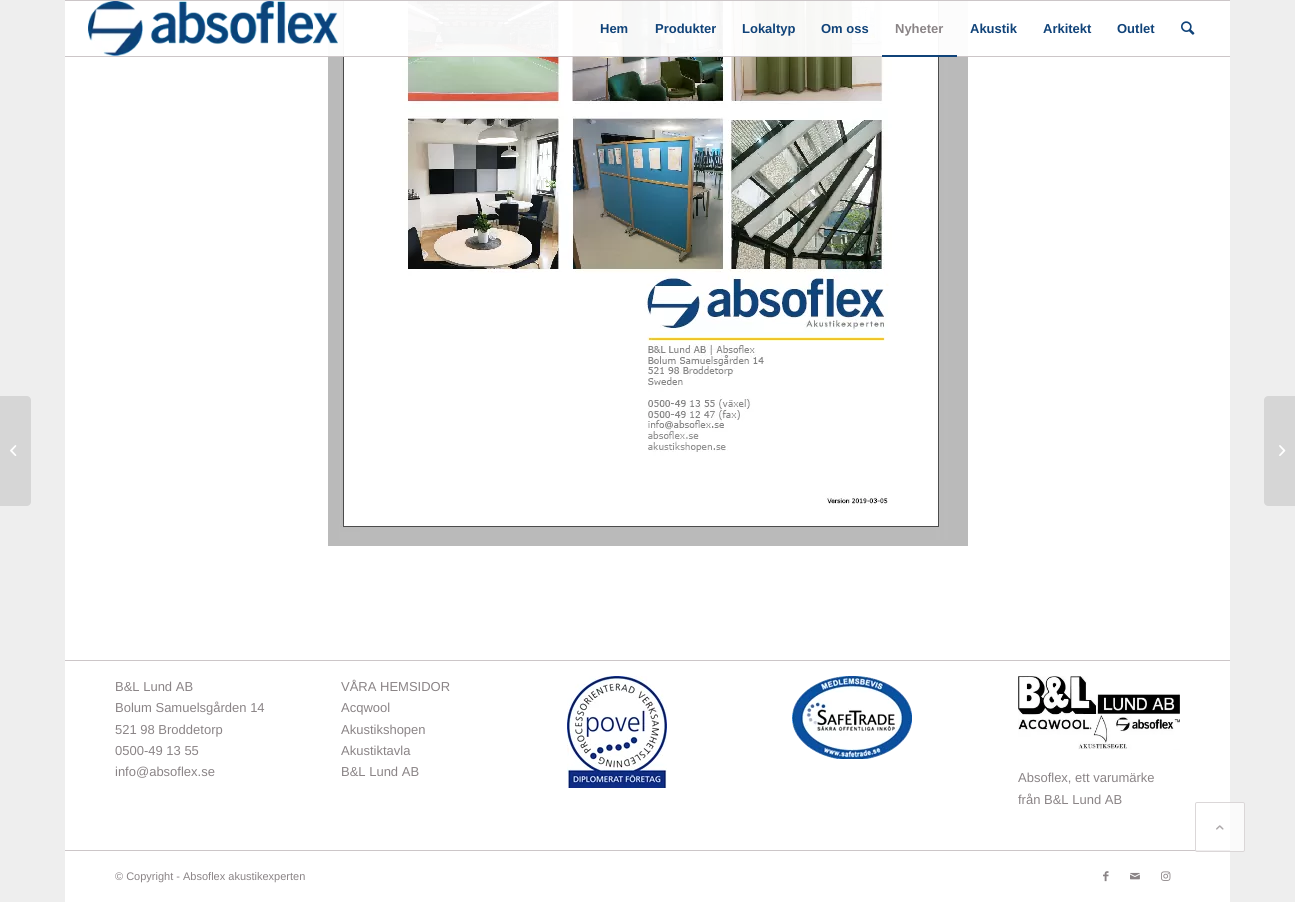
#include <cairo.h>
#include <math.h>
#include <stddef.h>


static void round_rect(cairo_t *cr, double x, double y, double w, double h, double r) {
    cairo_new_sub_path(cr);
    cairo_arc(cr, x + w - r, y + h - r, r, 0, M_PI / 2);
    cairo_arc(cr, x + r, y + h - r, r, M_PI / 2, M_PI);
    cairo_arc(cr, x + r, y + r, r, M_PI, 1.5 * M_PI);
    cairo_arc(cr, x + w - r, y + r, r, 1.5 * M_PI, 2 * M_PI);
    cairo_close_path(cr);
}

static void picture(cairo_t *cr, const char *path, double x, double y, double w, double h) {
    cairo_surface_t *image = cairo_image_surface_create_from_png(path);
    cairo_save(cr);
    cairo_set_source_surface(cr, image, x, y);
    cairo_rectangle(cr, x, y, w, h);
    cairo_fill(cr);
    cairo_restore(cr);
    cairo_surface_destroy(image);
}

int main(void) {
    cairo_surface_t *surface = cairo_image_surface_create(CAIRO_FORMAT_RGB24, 1295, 902);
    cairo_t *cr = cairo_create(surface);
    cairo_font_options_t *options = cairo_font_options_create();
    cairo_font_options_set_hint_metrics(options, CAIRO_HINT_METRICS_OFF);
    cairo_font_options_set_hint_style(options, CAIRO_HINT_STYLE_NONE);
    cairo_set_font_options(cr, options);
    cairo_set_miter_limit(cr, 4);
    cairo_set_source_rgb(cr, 0.933, 0.933, 0.933);
    cairo_paint(cr);
    cairo_set_source_rgb(cr, 1, 1, 1);
    cairo_rectangle(cr, 65, 1, 1165, 901);
    cairo_fill(cr);
    picture(cr, "img5.png", 328, 1, 640, 545);
    cairo_set_source_rgba(cr, 1, 1, 1, 0.95);
    cairo_rectangle(cr, 328, 1, 640, 55);
    cairo_fill(cr);
    cairo_set_source_rgb(cr, 0.8, 0.776, 0.784);
    cairo_rectangle(cr, 65, 0, 1165, 1);
    cairo_fill(cr);
    cairo_rectangle(cr, 65, 56, 1165, 1);
    cairo_fill(cr);
    picture(cr, "img1.png", 88, 1, 250, 55);
    cairo_select_font_face(cr, "Liberation Sans", CAIRO_FONT_SLANT_NORMAL, CAIRO_FONT_WEIGHT_BOLD);
    cairo_set_font_size(cr, 13);
    cairo_set_source_rgb(cr, 0.063, 0.263, 0.475);
    cairo_move_to(cr, 600, 33);
    cairo_show_text(cr, "Hem");
    cairo_move_to(cr, 655, 33);
    cairo_show_text(cr, "Produkter");
    cairo_move_to(cr, 742, 33);
    cairo_show_text(cr, "Lokaltyp");
    cairo_move_to(cr, 821, 33);
    cairo_show_text(cr, "Om oss");
    cairo_set_source_rgb(cr, 0.541, 0.518, 0.525);
    cairo_move_to(cr, 895, 33);
    cairo_show_text(cr, "Nyheter");
    cairo_set_source_rgb(cr, 0.063, 0.263, 0.475);
    cairo_rectangle(cr, 882, 55, 75, 2);
    cairo_fill(cr);
    cairo_move_to(cr, 970, 33);
    cairo_show_text(cr, "Akustik");
    cairo_move_to(cr, 1043, 33);
    cairo_show_text(cr, "Arkitekt");
    cairo_move_to(cr, 1117, 33);
    cairo_show_text(cr, "Outlet");
    picture(cr, "img2.png", 1181, 21, 14, 14);
    cairo_set_source_rgb(cr, 0.839, 0.839, 0.839);
    cairo_new_path(cr);
    cairo_move_to(cr, 0, 396);
    cairo_line_to(cr, 27, 396);
    cairo_curve_to(cr, 29, 396, 31, 398, 31, 400);
    cairo_line_to(cr, 31, 502);
    cairo_curve_to(cr, 31, 504, 29, 506, 27, 506);
    cairo_line_to(cr, 0, 506);
    cairo_close_path(cr);
    cairo_fill(cr);
    picture(cr, "img3.png", 10, 445, 7, 11);
    cairo_new_path(cr);
    cairo_move_to(cr, 1268, 396);
    cairo_line_to(cr, 1295, 396);
    cairo_line_to(cr, 1295, 506);
    cairo_line_to(cr, 1268, 506);
    cairo_curve_to(cr, 1266, 506, 1264, 504, 1264, 502);
    cairo_line_to(cr, 1264, 400);
    cairo_curve_to(cr, 1264, 398, 1266, 396, 1268, 396);
    cairo_close_path(cr);
    cairo_fill(cr);
    picture(cr, "img4.png", 1279, 445, 7, 11);
    cairo_set_source_rgb(cr, 0.8, 0.776, 0.784);
    cairo_rectangle(cr, 65, 660, 1165, 1);
    cairo_fill(cr);
    cairo_select_font_face(cr, "Liberation Sans", CAIRO_FONT_SLANT_NORMAL, CAIRO_FONT_WEIGHT_NORMAL);
    cairo_set_source_rgb(cr, 0.541, 0.518, 0.525);
    cairo_move_to(cr, 115, 691);
    cairo_show_text(cr, "B&L Lund AB");
    cairo_move_to(cr, 115, 712);
    cairo_show_text(cr, "Bolum Samuelsgården 14");
    cairo_move_to(cr, 115, 734);
    cairo_show_text(cr, "521 98 Broddetorp");
    cairo_move_to(cr, 115, 755);
    cairo_show_text(cr, "0500-49 13 55");
    cairo_move_to(cr, 115, 776);
    cairo_show_text(cr, "info@absoflex.se");
    cairo_move_to(cr, 341, 691);
    cairo_show_text(cr, "VÅRA HEMSIDOR");
    cairo_move_to(cr, 341, 712);
    cairo_show_text(cr, "Acqwool");
    cairo_move_to(cr, 341, 734);
    cairo_show_text(cr, "Akustikshopen");
    cairo_move_to(cr, 341, 755);
    cairo_show_text(cr, "Akustiktavla");
    cairo_move_to(cr, 341, 776);
    cairo_show_text(cr, "B&L Lund AB");
    picture(cr, "img6.png", 567, 676, 100, 112);
    picture(cr, "img7.png", 792, 676, 120, 83);
    picture(cr, "img8.png", 1018, 676, 162, 74);
    cairo_move_to(cr, 1018, 782);
    cairo_show_text(cr, "Absoflex, ett varumärke");
    cairo_move_to(cr, 1018, 804);
    cairo_show_text(cr, "från B&L Lund AB");
    cairo_set_source_rgb(cr, 0.8, 0.776, 0.784);
    cairo_rectangle(cr, 65, 850, 1165, 1);
    cairo_fill(cr);
    cairo_set_font_size(cr, 11);
    cairo_set_source_rgb(cr, 0.541, 0.518, 0.525);
    cairo_move_to(cr, 115, 880);
    cairo_show_text(cr, "© Copyright - Absoflex akustikexperten");
    picture(cr, "img9.png", 1103, 871, 6, 11);
    picture(cr, "img10.png", 1130, 872, 10, 8);
    picture(cr, "img11.png", 1161, 871, 10, 10);
    cairo_set_source_rgba(cr, 1, 1, 1, 0.7);
    round_rect(cr, 1195, 802, 50, 50, 2);
    cairo_fill(cr);
    round_rect(cr, 1195.5, 802.5, 49, 49, 1.5);
    cairo_set_source_rgba(cr, 0.8, 0.776, 0.784, 0.7);
    cairo_set_line_width(cr, 1);
    cairo_stroke(cr);
    picture(cr, "img12.png", 1216, 825, 8, 5);
    cairo_surface_write_to_png(surface, "page.png");
    cairo_font_options_destroy(options);
    cairo_destroy(cr);
    cairo_surface_destroy(surface);
    return 0;
}
